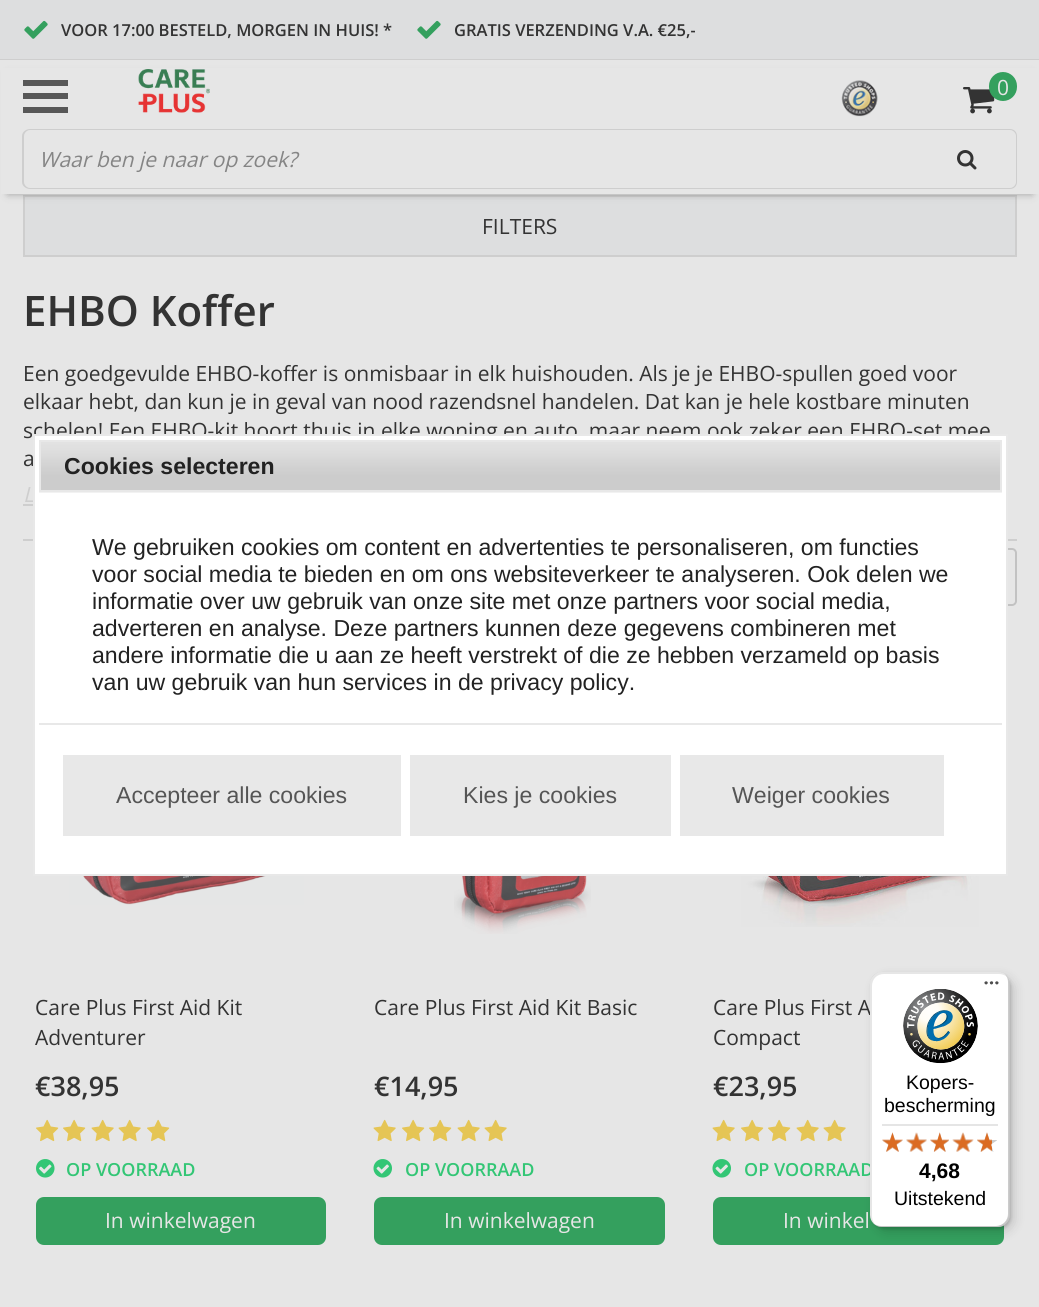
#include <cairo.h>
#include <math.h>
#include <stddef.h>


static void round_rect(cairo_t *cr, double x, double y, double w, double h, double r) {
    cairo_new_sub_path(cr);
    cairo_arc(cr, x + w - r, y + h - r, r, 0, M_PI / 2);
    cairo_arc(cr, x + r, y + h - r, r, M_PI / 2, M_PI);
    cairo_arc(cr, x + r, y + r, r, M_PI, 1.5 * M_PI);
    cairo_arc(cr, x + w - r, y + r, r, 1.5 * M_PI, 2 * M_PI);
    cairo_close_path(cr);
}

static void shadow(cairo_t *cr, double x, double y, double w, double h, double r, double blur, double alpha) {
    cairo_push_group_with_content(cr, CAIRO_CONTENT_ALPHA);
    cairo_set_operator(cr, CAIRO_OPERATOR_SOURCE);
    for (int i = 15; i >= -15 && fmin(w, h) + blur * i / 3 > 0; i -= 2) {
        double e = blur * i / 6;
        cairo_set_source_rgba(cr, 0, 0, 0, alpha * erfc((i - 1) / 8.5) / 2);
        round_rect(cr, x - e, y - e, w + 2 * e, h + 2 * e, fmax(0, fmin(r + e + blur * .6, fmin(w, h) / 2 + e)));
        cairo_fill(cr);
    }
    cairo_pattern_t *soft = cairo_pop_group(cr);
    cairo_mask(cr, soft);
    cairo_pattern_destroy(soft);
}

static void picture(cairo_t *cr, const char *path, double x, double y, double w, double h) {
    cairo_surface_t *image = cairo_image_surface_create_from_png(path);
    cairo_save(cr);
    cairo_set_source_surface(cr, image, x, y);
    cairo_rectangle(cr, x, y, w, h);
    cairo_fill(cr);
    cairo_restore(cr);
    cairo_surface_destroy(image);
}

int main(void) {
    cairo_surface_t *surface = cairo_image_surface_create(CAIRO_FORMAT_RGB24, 1039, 1307);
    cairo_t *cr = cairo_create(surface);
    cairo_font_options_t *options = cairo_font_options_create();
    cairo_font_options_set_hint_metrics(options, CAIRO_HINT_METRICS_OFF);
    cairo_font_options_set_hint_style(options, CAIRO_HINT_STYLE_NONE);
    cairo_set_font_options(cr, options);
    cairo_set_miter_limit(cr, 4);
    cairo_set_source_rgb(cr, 0.902, 0.902, 0.902);
    cairo_paint(cr);
    cairo_set_source_rgb(cr, 0.867, 0.871, 0.875);
    cairo_rectangle(cr, 0, 0, 1039, 59);
    cairo_fill(cr);
    cairo_set_source_rgb(cr, 0.808, 0.808, 0.808);
    cairo_rectangle(cr, 0, 59, 1039, 1);
    cairo_fill(cr);
    picture(cr, "img1.png", 24, 20, 24, 19);
    cairo_select_font_face(cr, "Open Sans SemiBold", CAIRO_FONT_SLANT_NORMAL, CAIRO_FONT_WEIGHT_NORMAL);
    cairo_set_font_size(cr, 16.5);
    cairo_set_source_rgb(cr, 0.2, 0.2, 0.2);
    cairo_move_to(cr, 61, 36);
    cairo_show_text(cr, "VOOR 17:00 BESTELD, MORGEN IN HUIS! *");
    picture(cr, "img1.png", 417, 20, 24, 19);
    cairo_move_to(cr, 454, 36);
    cairo_show_text(cr, "GRATIS VERZENDING V.A. €25,-");
    cairo_set_source_rgb(cr, 0.867, 0.871, 0.875);
    cairo_rectangle(cr, 24, 196, 992, 60);
    cairo_fill_preserve(cr);
    cairo_set_source_rgb(cr, 0.808, 0.808, 0.808);
    cairo_stroke(cr);
    cairo_set_source_rgb(cr, 0.2, 0.2, 0.2);
    shadow(cr, 8, 75, 1024, 119, 0, 4, 0.4);
    cairo_set_source_rgb(cr, 0.902, 0.902, 0.902);
    cairo_rectangle(cr, 1, 68, 1038, 126);
    cairo_fill(cr);
    cairo_set_source_rgb(cr, 0.341, 0.341, 0.341);
    cairo_rectangle(cr, 23, 80, 45, 6);
    cairo_fill(cr);
    cairo_rectangle(cr, 23, 93, 45, 6);
    cairo_fill(cr);
    cairo_rectangle(cr, 23, 107, 45, 6);
    cairo_fill(cr);
    picture(cr, "img2.png", 138, 69, 72, 44);
    picture(cr, "img3.png", 841, 80, 37, 37);
    picture(cr, "img4.png", 963, 87, 32, 27);
    cairo_set_source_rgb(cr, 0.204, 0.627, 0.369);
    round_rect(cr, 989, 72, 28, 29, 14);
    cairo_fill(cr);
    cairo_select_font_face(cr, "Open Sans", CAIRO_FONT_SLANT_NORMAL, CAIRO_FONT_WEIGHT_NORMAL);
    cairo_set_font_size(cr, 21);
    cairo_set_source_rgb(cr, 0.902, 0.902, 0.902);
    cairo_move_to(cr, 997, 95);
    cairo_show_text(cr, "0");
    cairo_set_source_rgb(cr, 0.808, 0.808, 0.808);
    cairo_set_fill_rule(cr, CAIRO_FILL_RULE_EVEN_ODD);
    cairo_new_path(cr);
    cairo_move_to(cr, 30, 129);
    cairo_line_to(cr, 918, 129);
    cairo_line_to(cr, 918, 189);
    cairo_line_to(cr, 30, 189);
    cairo_curve_to(cr, 26, 189, 22, 186, 22, 182);
    cairo_line_to(cr, 22, 136);
    cairo_curve_to(cr, 22, 132, 26, 129, 30, 129);
    cairo_close_path(cr);
    cairo_move_to(cr, 30, 130);
    cairo_line_to(cr, 918, 130);
    cairo_line_to(cr, 918, 188);
    cairo_line_to(cr, 30, 188);
    cairo_curve_to(cr, 27, 188, 24, 185, 24, 182);
    cairo_line_to(cr, 24, 136);
    cairo_curve_to(cr, 24, 133, 27, 130, 30, 130);
    cairo_close_path(cr);
    cairo_fill(cr);
    cairo_select_font_face(cr, "Open Sans", CAIRO_FONT_SLANT_ITALIC, CAIRO_FONT_WEIGHT_NORMAL);
    cairo_set_source_rgb(cr, 0.522, 0.522, 0.522);
    cairo_move_to(cr, 39, 167);
    cairo_show_text(cr, "Waar ben je naar op zoek?");
    cairo_set_source_rgb(cr, 0.808, 0.808, 0.808);
    cairo_new_path(cr);
    cairo_move_to(cr, 918, 129);
    cairo_line_to(cr, 1010, 129);
    cairo_curve_to(cr, 1014, 129, 1017, 132, 1017, 136);
    cairo_line_to(cr, 1017, 182);
    cairo_curve_to(cr, 1017, 186, 1014, 189, 1010, 189);
    cairo_line_to(cr, 918, 189);
    cairo_close_path(cr);
    cairo_move_to(cr, 918, 130);
    cairo_line_to(cr, 1010, 130);
    cairo_curve_to(cr, 1013, 130, 1016, 133, 1016, 136);
    cairo_line_to(cr, 1016, 182);
    cairo_curve_to(cr, 1016, 185, 1013, 188, 1010, 188);
    cairo_line_to(cr, 918, 188);
    cairo_close_path(cr);
    cairo_fill(cr);
    picture(cr, "img5.png", 957, 150, 20, 20);
    cairo_select_font_face(cr, "Open Sans", CAIRO_FONT_SLANT_NORMAL, CAIRO_FONT_WEIGHT_NORMAL);
    cairo_set_source_rgb(cr, 0.2, 0.2, 0.2);
    cairo_move_to(cr, 482, 234);
    cairo_show_text(cr, "FILTERS");
    cairo_select_font_face(cr, "Open Sans SemiBold", CAIRO_FONT_SLANT_NORMAL, CAIRO_FONT_WEIGHT_NORMAL);
    cairo_set_font_size(cr, 42);
    cairo_move_to(cr, 23, 326);
    cairo_show_text(cr, "EHBO Koffer");
    cairo_select_font_face(cr, "Open Sans", CAIRO_FONT_SLANT_NORMAL, CAIRO_FONT_WEIGHT_NORMAL);
    cairo_set_font_size(cr, 21);
    cairo_move_to(cr, 23, 381);
    cairo_show_text(cr, "Een goedgevulde EHBO-koffer is onmisbaar in elk huishouden. Als je je EHBO-spullen goed voor");
    cairo_move_to(cr, 23, 409);
    cairo_show_text(cr, "elkaar hebt, dan kun je in geval van nood razendsnel handelen. Dat kan je hele kostbare minuten");
    cairo_move_to(cr, 23, 438);
    cairo_show_text(cr, "schelen! Een EHBO-kit hoort thuis in elke woning en auto, maar neem ook zeker een EHBO-set mee");
    cairo_move_to(cr, 23, 466);
    cairo_show_text(cr, "a");
    cairo_select_font_face(cr, "Open Sans", CAIRO_FONT_SLANT_ITALIC, CAIRO_FONT_WEIGHT_NORMAL);
    cairo_set_source_rgb(cr, 0.808, 0.808, 0.808);
    cairo_move_to(cr, 23, 502);
    cairo_show_text(cr, "L");
    cairo_rectangle(cr, 23, 504, 10, 2);
    cairo_fill(cr);
    cairo_rectangle(cr, 23, 539, 994, 2);
    cairo_fill(cr);
    round_rect(cr, 799, 549, 217, 56, 4);
    cairo_set_source_rgb(cr, 0.761, 0.761, 0.761);
    cairo_stroke(cr);
    picture(cr, "img6.png", 69, 876, 235, 29);
    cairo_select_font_face(cr, "Open Sans", CAIRO_FONT_SLANT_NORMAL, CAIRO_FONT_WEIGHT_NORMAL);
    cairo_set_source_rgb(cr, 0.2, 0.2, 0.2);
    cairo_move_to(cr, 35, 1015);
    cairo_show_text(cr, "Care Plus First Aid Kit");
    cairo_move_to(cr, 35, 1045);
    cairo_show_text(cr, "Adventurer");
    cairo_select_font_face(cr, "Open Sans SemiBold", CAIRO_FONT_SLANT_NORMAL, CAIRO_FONT_WEIGHT_NORMAL);
    cairo_set_font_size(cr, 27);
    cairo_move_to(cr, 35, 1096);
    cairo_show_text(cr, "€38,95");
    picture(cr, "img7.png", 36, 1119, 23, 23);
    picture(cr, "img7.png", 63, 1119, 23, 23);
    picture(cr, "img8.png", 91, 1119, 23, 23);
    picture(cr, "img8.png", 118, 1119, 23, 23);
    picture(cr, "img7.png", 147, 1119, 23, 23);
    picture(cr, "img9.png", 36, 1159, 19, 19);
    cairo_set_font_size(cr, 18);
    cairo_set_source_rgb(cr, 0.2, 0.776, 0.459);
    cairo_move_to(cr, 66, 1176);
    cairo_show_text(cr, "OP VOORRAAD");
    cairo_set_source_rgb(cr, 0.204, 0.627, 0.369);
    round_rect(cr, 37, 1198, 288, 46, 7);
    cairo_fill_preserve(cr);
    cairo_stroke(cr);
    cairo_select_font_face(cr, "Open Sans", CAIRO_FONT_SLANT_NORMAL, CAIRO_FONT_WEIGHT_NORMAL);
    cairo_set_font_size(cr, 21);
    cairo_set_source_rgb(cr, 0.902, 0.902, 0.902);
    cairo_move_to(cr, 105, 1228);
    cairo_show_text(cr, "In winkelwagen");
    picture(cr, "img10.png", 454, 876, 137, 58);
    cairo_set_source_rgb(cr, 0.2, 0.2, 0.2);
    cairo_move_to(cr, 374, 1015);
    cairo_show_text(cr, "Care Plus First Aid Kit Basic");
    cairo_select_font_face(cr, "Open Sans SemiBold", CAIRO_FONT_SLANT_NORMAL, CAIRO_FONT_WEIGHT_NORMAL);
    cairo_set_font_size(cr, 27);
    cairo_move_to(cr, 374, 1096);
    cairo_show_text(cr, "€14,95");
    picture(cr, "img8.png", 373, 1119, 23, 23);
    picture(cr, "img7.png", 402, 1119, 23, 23);
    picture(cr, "img7.png", 429, 1119, 23, 23);
    picture(cr, "img8.png", 457, 1119, 23, 23);
    picture(cr, "img8.png", 484, 1119, 23, 23);
    picture(cr, "img11.png", 373, 1159, 19, 19);
    cairo_set_font_size(cr, 18);
    cairo_set_source_rgb(cr, 0.2, 0.776, 0.459);
    cairo_move_to(cr, 405, 1176);
    cairo_show_text(cr, "OP VOORRAAD");
    cairo_set_source_rgb(cr, 0.204, 0.627, 0.369);
    round_rect(cr, 375, 1198, 289, 46, 7);
    cairo_fill_preserve(cr);
    cairo_stroke(cr);
    cairo_select_font_face(cr, "Open Sans", CAIRO_FONT_SLANT_NORMAL, CAIRO_FONT_WEIGHT_NORMAL);
    cairo_set_font_size(cr, 21);
    cairo_set_source_rgb(cr, 0.902, 0.902, 0.902);
    cairo_move_to(cr, 444, 1228);
    cairo_show_text(cr, "In winkelwagen");
    picture(cr, "img12.png", 741, 876, 238, 51);
    cairo_set_source_rgb(cr, 0.2, 0.2, 0.2);
    cairo_move_to(cr, 713, 1015);
    cairo_show_text(cr, "Care Plus First A");
    cairo_move_to(cr, 713, 1045);
    cairo_show_text(cr, "Compact");
    cairo_select_font_face(cr, "Open Sans SemiBold", CAIRO_FONT_SLANT_NORMAL, CAIRO_FONT_WEIGHT_NORMAL);
    cairo_set_font_size(cr, 27);
    cairo_move_to(cr, 713, 1096);
    cairo_show_text(cr, "€23,95");
    picture(cr, "img8.png", 712, 1119, 23, 23);
    picture(cr, "img7.png", 741, 1119, 23, 23);
    picture(cr, "img7.png", 768, 1119, 23, 23);
    picture(cr, "img8.png", 796, 1119, 23, 23);
    picture(cr, "img8.png", 823, 1119, 23, 23);
    picture(cr, "img11.png", 712, 1159, 19, 19);
    cairo_set_font_size(cr, 18);
    cairo_set_source_rgb(cr, 0.2, 0.776, 0.459);
    cairo_move_to(cr, 744, 1176);
    cairo_show_text(cr, "OP VOORRAAD");
    cairo_set_source_rgb(cr, 0.204, 0.627, 0.369);
    round_rect(cr, 714, 1198, 289, 46, 7);
    cairo_fill_preserve(cr);
    cairo_stroke(cr);
    cairo_select_font_face(cr, "Open Sans", CAIRO_FONT_SLANT_NORMAL, CAIRO_FONT_WEIGHT_NORMAL);
    cairo_set_font_size(cr, 21);
    cairo_set_source_rgb(cr, 0.902, 0.902, 0.902);
    cairo_move_to(cr, 783, 1228);
    cairo_show_text(cr, "In winkel");
    cairo_set_source_rgb(cr, 1, 1, 1);
    cairo_rectangle(cr, 34, 435, 973, 440);
    cairo_fill_preserve(cr);
    cairo_set_source_rgb(cr, 0.91, 0.91, 0.91);
    cairo_stroke(cr);
    picture(cr, "img13.png", 39, 442, 963, 51);
    cairo_rectangle(cr, 40, 441, 961, 50);
    cairo_stroke(cr);
    cairo_select_font_face(cr, "Liberation Sans", CAIRO_FONT_SLANT_NORMAL, CAIRO_FONT_WEIGHT_BOLD);
    cairo_set_font_size(cr, 23.1);
    cairo_set_source_rgb(cr, 0.133, 0.133, 0.133);
    cairo_move_to(cr, 64, 474);
    cairo_show_text(cr, "Cookies selecteren");
    cairo_select_font_face(cr, "Liberation Sans", CAIRO_FONT_SLANT_NORMAL, CAIRO_FONT_WEIGHT_NORMAL);
    cairo_move_to(cr, 92, 555);
    cairo_show_text(cr, "We gebruiken cookies om content en advertenties te personaliseren, om functies");
    cairo_move_to(cr, 92, 582);
    cairo_show_text(cr, "voor social media te bieden en om ons websiteverkeer te analyseren. Ook delen we");
    cairo_move_to(cr, 92, 609);
    cairo_show_text(cr, "informatie over uw gebruik van onze site met onze partners voor social media,");
    cairo_move_to(cr, 92, 636);
    cairo_show_text(cr, "adverteren en analyse. Deze partners kunnen deze gegevens combineren met");
    cairo_move_to(cr, 92, 663);
    cairo_show_text(cr, "andere informatie die u aan ze heeft verstrekt of die ze hebben verzameld op basis");
    cairo_move_to(cr, 92, 690);
    cairo_show_text(cr, "van uw gebruik van hun services in de privacy policy.");
    cairo_set_source_rgb(cr, 0.91, 0.91, 0.91);
    cairo_rectangle(cr, 39, 723, 963, 2);
    cairo_fill(cr);
    cairo_rectangle(cr, 63, 755, 338, 81);
    cairo_fill(cr);
    cairo_set_source_rgb(cr, 0.333, 0.333, 0.333);
    cairo_move_to(cr, 116, 803);
    cairo_show_text(cr, "Accepteer alle cookies");
    cairo_set_source_rgb(cr, 0.91, 0.91, 0.91);
    cairo_rectangle(cr, 410, 755, 261, 81);
    cairo_fill(cr);
    cairo_set_source_rgb(cr, 0.333, 0.333, 0.333);
    cairo_move_to(cr, 463, 803);
    cairo_show_text(cr, "Kies je cookies");
    cairo_set_source_rgb(cr, 0.91, 0.91, 0.91);
    cairo_rectangle(cr, 680, 755, 264, 81);
    cairo_fill(cr);
    cairo_set_source_rgb(cr, 0.333, 0.333, 0.333);
    cairo_move_to(cr, 732, 803);
    cairo_show_text(cr, "Weiger cookies");
    cairo_set_source_rgb(cr, 0, 0, 0);
    shadow(cr, 875, 977, 139, 255, 12, 6, 0.15);
    shadow(cr, 872, 974, 139, 255, 12, 1.5, 0.15);
    cairo_set_source_rgb(cr, 1, 1, 1);
    round_rect(cr, 870, 972, 140, 255, 12);
    cairo_fill(cr);
    cairo_set_source_rgba(cr, 0, 0, 0, 0.1);
    cairo_set_fill_rule(cr, CAIRO_FILL_RULE_WINDING);
    cairo_new_path(cr);
    cairo_move_to(cr, 884, 974);
    cairo_line_to(cr, 999, 974);
    cairo_curve_to(cr, 1003, 974, 1007, 976, 1009, 979);
    cairo_curve_to(cr, 1007, 975, 1003, 972, 998, 972);
    cairo_line_to(cr, 882, 972);
    cairo_curve_to(cr, 875, 972, 870, 977, 870, 984);
    cairo_line_to(cr, 870, 1215);
    cairo_curve_to(cr, 870, 1220, 873, 1224, 877, 1226);
    cairo_curve_to(cr, 874, 1224, 872, 1220, 872, 1216);
    cairo_line_to(cr, 872, 986);
    cairo_curve_to(cr, 872, 979, 877, 974, 884, 974);
    cairo_close_path(cr);
    cairo_fill(cr);
    cairo_set_source_rgba(cr, 0, 0, 0, 0.2);
    cairo_new_path(cr);
    cairo_move_to(cr, 875, 1224);
    cairo_curve_to(cr, 877, 1226, 879, 1227, 882, 1227);
    cairo_line_to(cr, 998, 1227);
    cairo_curve_to(cr, 1005, 1227, 1010, 1222, 1010, 1215);
    cairo_line_to(cr, 1010, 984);
    cairo_curve_to(cr, 1010, 980, 1008, 977, 1005, 974);
    cairo_curve_to(cr, 1007, 977, 1008, 979, 1008, 982);
    cairo_line_to(cr, 1008, 1214);
    cairo_curve_to(cr, 1008, 1220, 1003, 1226, 996, 1226);
    cairo_line_to(cr, 880, 1226);
    cairo_curve_to(cr, 878, 1226, 876, 1225, 875, 1224);
    cairo_close_path(cr);
    cairo_fill(cr);
    cairo_set_source_rgba(cr, 0.196, 0.196, 0.196, 0.2);
    cairo_new_path(cr);
    cairo_move_to(cr, 874, 1224);
    cairo_curve_to(cr, 876, 1226, 879, 1227, 882, 1227);
    cairo_line_to(cr, 998, 1227);
    cairo_curve_to(cr, 1005, 1227, 1010, 1222, 1010, 1215);
    cairo_line_to(cr, 1010, 984);
    cairo_curve_to(cr, 1010, 980, 1008, 977, 1006, 975);
    cairo_curve_to(cr, 1008, 977, 1009, 980, 1009, 983);
    cairo_line_to(cr, 1009, 1214);
    cairo_curve_to(cr, 1009, 1221, 1003, 1226, 997, 1226);
    cairo_line_to(cr, 881, 1226);
    cairo_curve_to(cr, 878, 1226, 876, 1225, 874, 1224);
    cairo_close_path(cr);
    cairo_fill(cr);
    cairo_set_source_rgba(cr, 1, 1, 1, 0.3);
    cairo_new_path(cr);
    cairo_move_to(cr, 873, 1223);
    cairo_curve_to(cr, 875, 1225, 878, 1227, 882, 1227);
    cairo_line_to(cr, 998, 1227);
    cairo_curve_to(cr, 1005, 1227, 1010, 1222, 1010, 1215);
    cairo_line_to(cr, 1010, 984);
    cairo_curve_to(cr, 1010, 979, 1008, 976, 1004, 974);
    cairo_curve_to(cr, 1007, 976, 1009, 979, 1009, 983);
    cairo_line_to(cr, 1009, 1214);
    cairo_curve_to(cr, 1009, 1221, 1003, 1226, 997, 1226);
    cairo_line_to(cr, 881, 1226);
    cairo_curve_to(cr, 878, 1226, 875, 1225, 873, 1223);
    cairo_close_path(cr);
    cairo_fill(cr);
    picture(cr, "img14.png", 984, 981, 15, 4);
    picture(cr, "img15.png", 903, 989, 75, 75);
    cairo_set_font_size(cr, 19.5);
    cairo_set_source_rgb(cr, 0, 0, 0);
    cairo_move_to(cr, 906, 1089);
    cairo_show_text(cr, "Kopers-");
    cairo_move_to(cr, 884, 1112);
    cairo_show_text(cr, "bescherming");
    cairo_set_source_rgb(cr, 0.898, 0.898, 0.898);
    cairo_rectangle(cr, 882, 1124, 116, 2);
    cairo_fill(cr);
    picture(cr, "img21.png", 882, 1133, 21, 19);
    picture(cr, "img16.png", 882, 1132, 21, 20);
    picture(cr, "img22.png", 906, 1133, 21, 19);
    picture(cr, "img17.png", 906, 1132, 21, 20);
    picture(cr, "img23.png", 930, 1133, 19, 19);
    picture(cr, "img18.png", 930, 1132, 19, 20);
    picture(cr, "img24.png", 953, 1133, 20, 19);
    picture(cr, "img19.png", 952, 1132, 22, 20);
    picture(cr, "img25.png", 977, 1133, 20, 19);
    picture(cr, "img20.png", 977, 1132, 15, 20);
    cairo_select_font_face(cr, "Liberation Sans", CAIRO_FONT_SLANT_NORMAL, CAIRO_FONT_WEIGHT_BOLD);
    cairo_set_font_size(cr, 21);
    cairo_set_source_rgb(cr, 0, 0, 0);
    cairo_move_to(cr, 919, 1178);
    cairo_show_text(cr, "4,68");
    cairo_select_font_face(cr, "Liberation Sans", CAIRO_FONT_SLANT_NORMAL, CAIRO_FONT_WEIGHT_NORMAL);
    cairo_set_font_size(cr, 19.5);
    cairo_move_to(cr, 894, 1205);
    cairo_show_text(cr, "Uitstekend");
    cairo_surface_write_to_png(surface, "page.png");
    cairo_font_options_destroy(options);
    cairo_destroy(cr);
    cairo_surface_destroy(surface);
    return 0;
}
